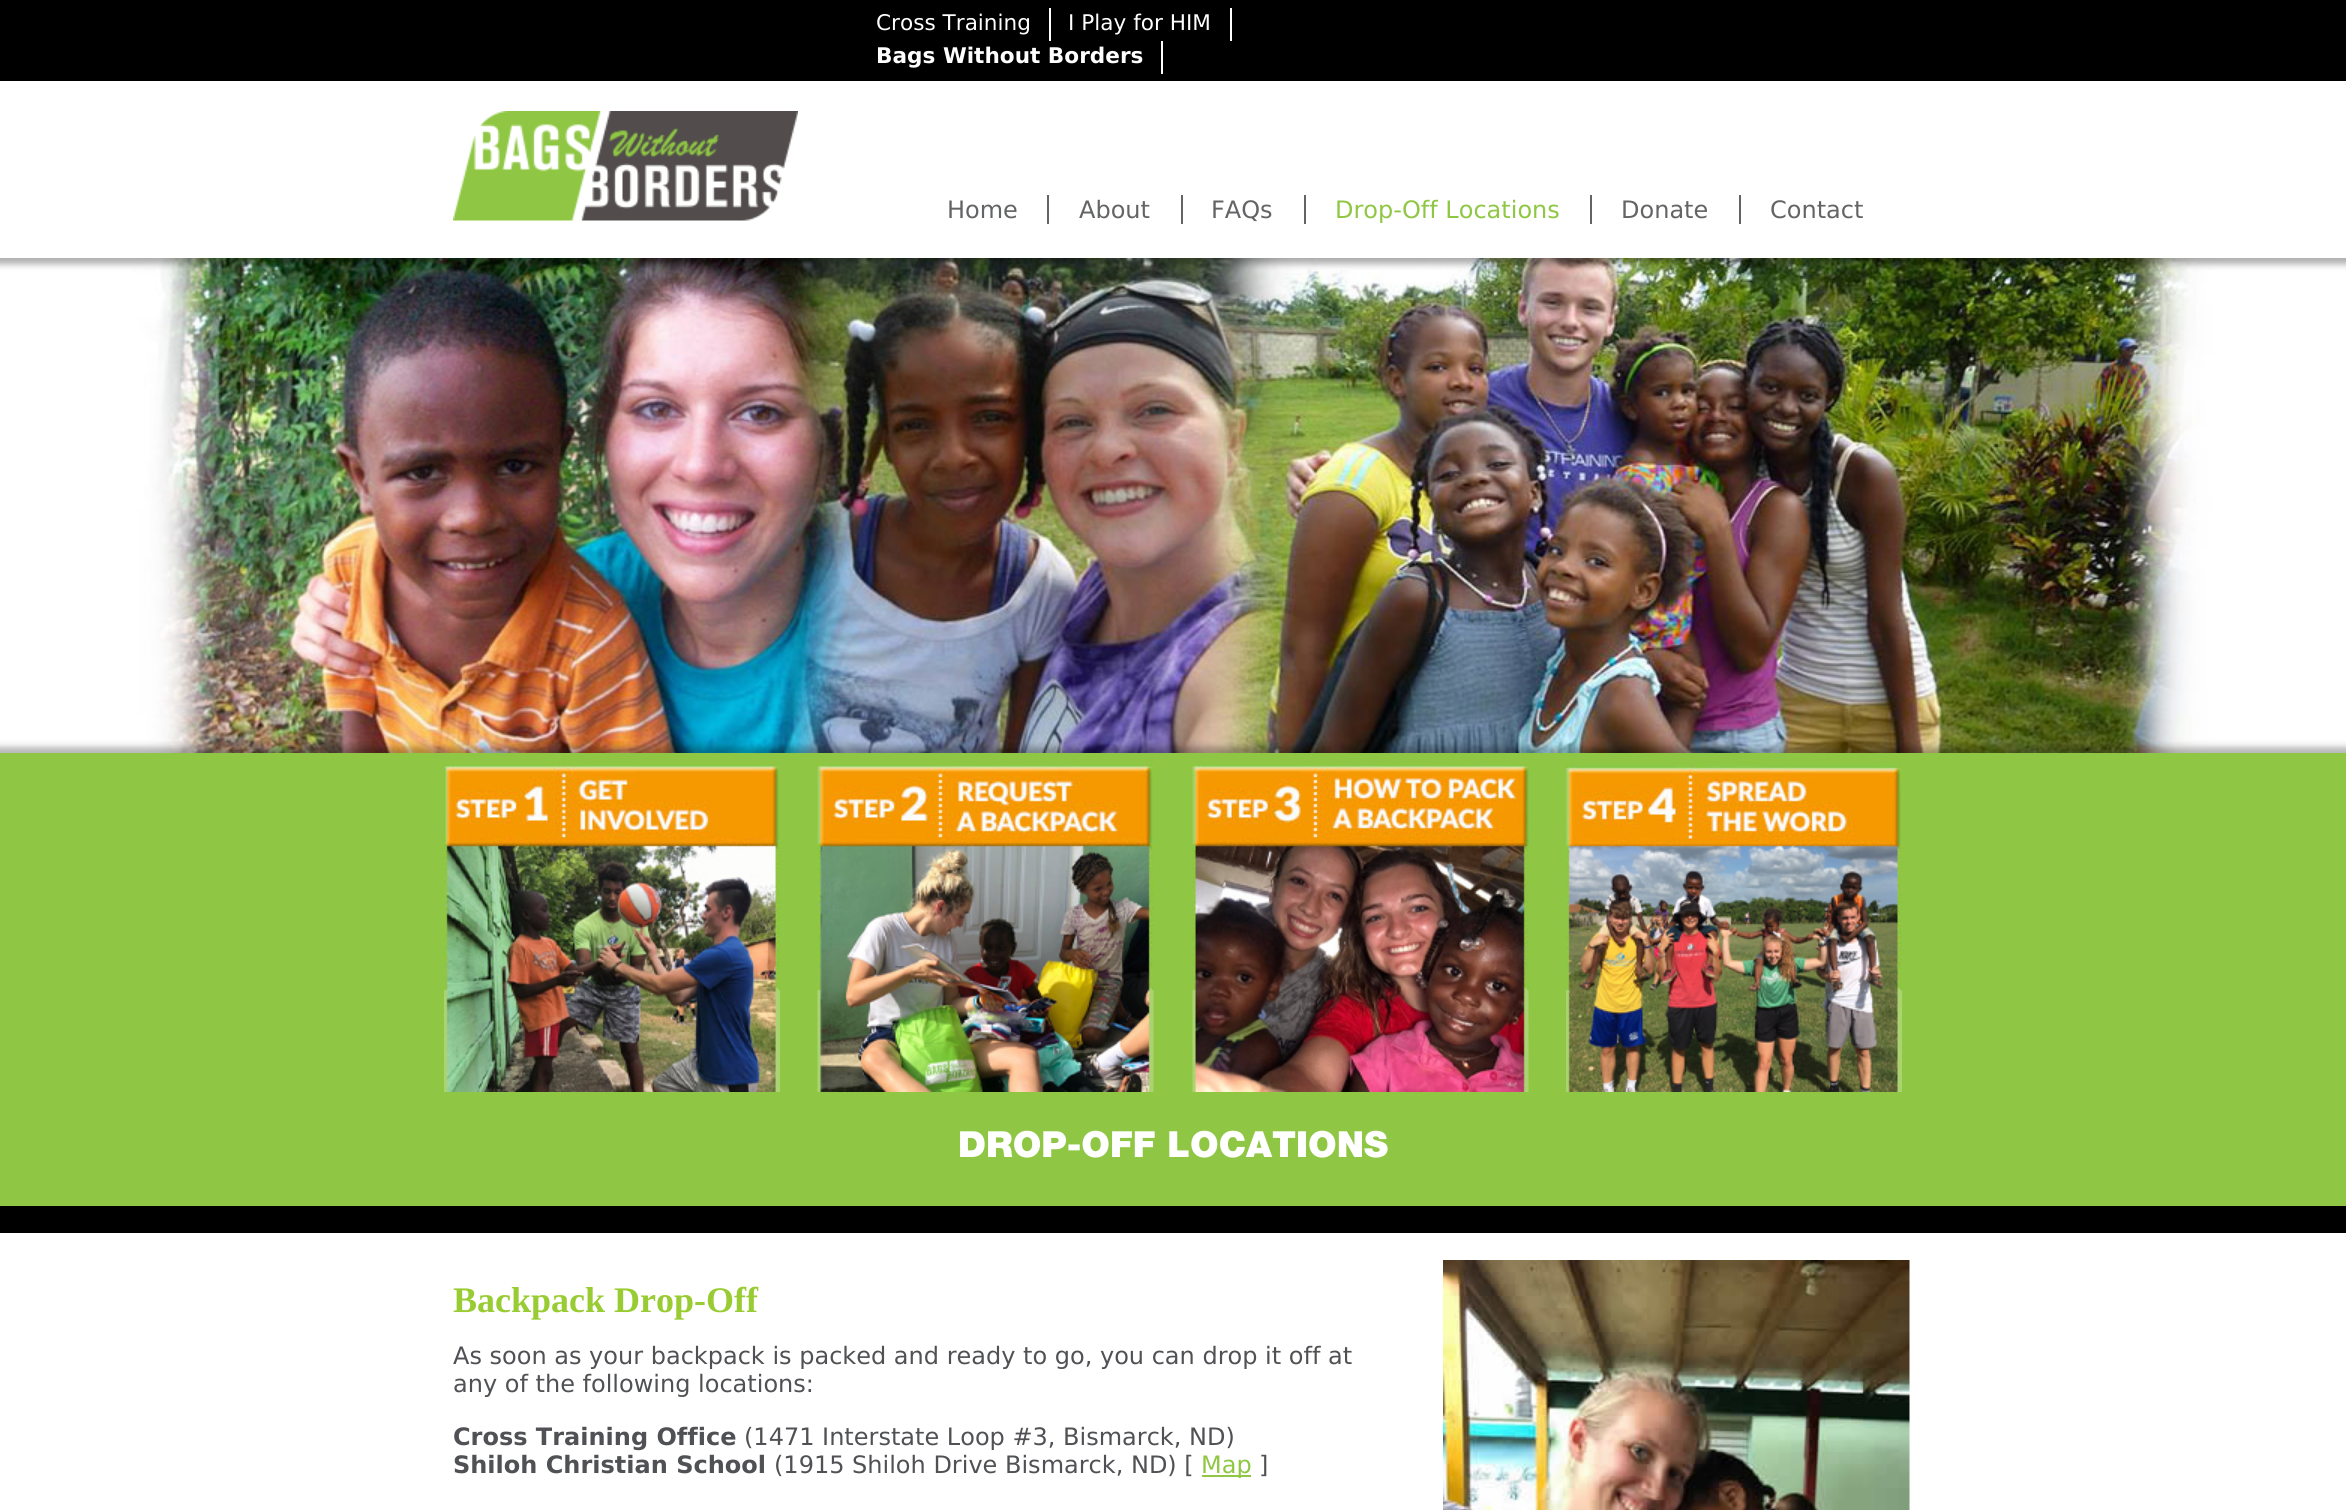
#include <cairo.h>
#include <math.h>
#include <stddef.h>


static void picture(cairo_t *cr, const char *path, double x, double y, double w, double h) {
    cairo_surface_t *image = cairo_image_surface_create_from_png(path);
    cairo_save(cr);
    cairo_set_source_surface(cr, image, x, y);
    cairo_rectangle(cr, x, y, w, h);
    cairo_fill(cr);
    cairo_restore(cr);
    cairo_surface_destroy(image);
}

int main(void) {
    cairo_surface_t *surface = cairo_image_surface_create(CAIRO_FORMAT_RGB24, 2346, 1510);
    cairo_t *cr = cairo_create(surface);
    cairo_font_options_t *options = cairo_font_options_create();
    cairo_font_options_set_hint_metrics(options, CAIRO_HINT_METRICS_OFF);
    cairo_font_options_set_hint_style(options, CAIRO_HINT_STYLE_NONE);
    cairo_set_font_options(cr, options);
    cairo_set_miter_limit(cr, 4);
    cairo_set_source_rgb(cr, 1, 1, 1);
    cairo_paint(cr);
    cairo_set_source_rgb(cr, 0, 0, 0);
    cairo_rectangle(cr, 0, 0, 2346, 81);
    cairo_fill(cr);
    cairo_set_source_rgb(cr, 1, 1, 1);
    cairo_rectangle(cr, 1049, 8, 2, 33);
    cairo_fill(cr);
    cairo_select_font_face(cr, "DejaVu Sans", CAIRO_FONT_SLANT_NORMAL, CAIRO_FONT_WEIGHT_NORMAL);
    cairo_set_font_size(cr, 21.6);
    cairo_move_to(cr, 876, 30);
    cairo_show_text(cr, "Cross Training");
    cairo_rectangle(cr, 1230, 8, 2, 33);
    cairo_fill(cr);
    cairo_move_to(cr, 1068, 30);
    cairo_show_text(cr, "I Play for HIM");
    cairo_rectangle(cr, 1161, 41, 2, 33);
    cairo_fill(cr);
    cairo_select_font_face(cr, "DejaVu Sans", CAIRO_FONT_SLANT_NORMAL, CAIRO_FONT_WEIGHT_BOLD);
    cairo_move_to(cr, 876, 63);
    cairo_show_text(cr, "Bags Without Borders");
    picture(cr, "img1.png", 453, 111, 345, 110);
    cairo_select_font_face(cr, "DejaVu Sans", CAIRO_FONT_SLANT_NORMAL, CAIRO_FONT_WEIGHT_NORMAL);
    cairo_set_font_size(cr, 24);
    cairo_set_source_rgb(cr, 0.388, 0.392, 0.4);
    cairo_move_to(cr, 947, 218);
    cairo_show_text(cr, "Home");
    cairo_rectangle(cr, 1047, 195, 2, 29);
    cairo_fill(cr);
    cairo_move_to(cr, 1079, 218);
    cairo_show_text(cr, "About");
    cairo_rectangle(cr, 1181, 195, 2, 29);
    cairo_fill(cr);
    cairo_move_to(cr, 1211, 218);
    cairo_show_text(cr, "FAQs");
    cairo_rectangle(cr, 1304, 195, 2, 29);
    cairo_fill(cr);
    cairo_set_source_rgb(cr, 0.561, 0.78, 0.267);
    cairo_move_to(cr, 1335, 218);
    cairo_show_text(cr, "Drop-Off Locations");
    cairo_set_source_rgb(cr, 0.388, 0.392, 0.4);
    cairo_rectangle(cr, 1590, 195, 2, 29);
    cairo_fill(cr);
    cairo_move_to(cr, 1621, 218);
    cairo_show_text(cr, "Donate");
    cairo_rectangle(cr, 1739, 195, 2, 29);
    cairo_fill(cr);
    cairo_move_to(cr, 1770, 218);
    cairo_show_text(cr, "Contact");
    picture(cr, "img2.png", 0, 258, 2346, 495);
    cairo_set_source_rgb(cr, 0.561, 0.78, 0.267);
    cairo_rectangle(cr, 0, 753, 2346, 453);
    cairo_fill(cr);
    cairo_set_source_rgb(cr, 0, 0, 0);
    cairo_rectangle(cr, 0, 1206, 2346, 27);
    cairo_fill(cr);
    picture(cr, "img3.png", 444, 765, 336, 327);
    picture(cr, "img4.png", 817, 765, 337, 327);
    picture(cr, "img5.png", 1192, 765, 337, 327);
    picture(cr, "img6.png", 1566, 765, 336, 327);
    cairo_select_font_face(cr, "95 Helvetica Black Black", CAIRO_FONT_SLANT_NORMAL, CAIRO_FONT_WEIGHT_NORMAL);
    cairo_set_font_size(cr, 36);
    cairo_set_source_rgb(cr, 1, 1, 1);
    cairo_move_to(cr, 958, 1157);
    cairo_show_text(cr, "DROP-OFF LOCATIONS");
    cairo_select_font_face(cr, "Liberation Serif", CAIRO_FONT_SLANT_NORMAL, CAIRO_FONT_WEIGHT_BOLD);
    cairo_set_source_rgb(cr, 0.6, 0.8, 0.2);
    cairo_move_to(cr, 453, 1312);
    cairo_show_text(cr, "Backpack Drop-Off");
    cairo_select_font_face(cr, "DejaVu Sans", CAIRO_FONT_SLANT_NORMAL, CAIRO_FONT_WEIGHT_NORMAL);
    cairo_set_font_size(cr, 24);
    cairo_set_source_rgb(cr, 0.314, 0.318, 0.329);
    cairo_move_to(cr, 453, 1364);
    cairo_show_text(cr, "As soon as your backpack is packed and ready to go, you can drop it off at");
    cairo_move_to(cr, 453, 1392);
    cairo_show_text(cr, "any of the following locations:");
    cairo_select_font_face(cr, "DejaVu Sans", CAIRO_FONT_SLANT_NORMAL, CAIRO_FONT_WEIGHT_BOLD);
    cairo_move_to(cr, 453, 1445);
    cairo_show_text(cr, "Cross Training Office");
    cairo_select_font_face(cr, "DejaVu Sans", CAIRO_FONT_SLANT_NORMAL, CAIRO_FONT_WEIGHT_NORMAL);
    cairo_move_to(cr, 744, 1445);
    cairo_show_text(cr, "(1471 Interstate Loop #3, Bismarck, ND)");
    cairo_select_font_face(cr, "DejaVu Sans", CAIRO_FONT_SLANT_NORMAL, CAIRO_FONT_WEIGHT_BOLD);
    cairo_move_to(cr, 453, 1473);
    cairo_show_text(cr, "Shiloh Christian School");
    cairo_select_font_face(cr, "DejaVu Sans", CAIRO_FONT_SLANT_NORMAL, CAIRO_FONT_WEIGHT_NORMAL);
    cairo_move_to(cr, 774, 1473);
    cairo_show_text(cr, "(1915 Shiloh Drive Bismarck, ND) [");
    cairo_set_source_rgb(cr, 0.561, 0.78, 0.267);
    cairo_rectangle(cr, 1202, 1475, 49, 2);
    cairo_fill(cr);
    cairo_move_to(cr, 1201, 1473);
    cairo_show_text(cr, "Map");
    cairo_set_source_rgb(cr, 0.314, 0.318, 0.329);
    cairo_move_to(cr, 1259, 1473);
    cairo_show_text(cr, "]");
    picture(cr, "img7.png", 1443, 1260, 467, 250);
    cairo_surface_write_to_png(surface, "page.png");
    cairo_font_options_destroy(options);
    cairo_destroy(cr);
    cairo_surface_destroy(surface);
    return 0;
}
